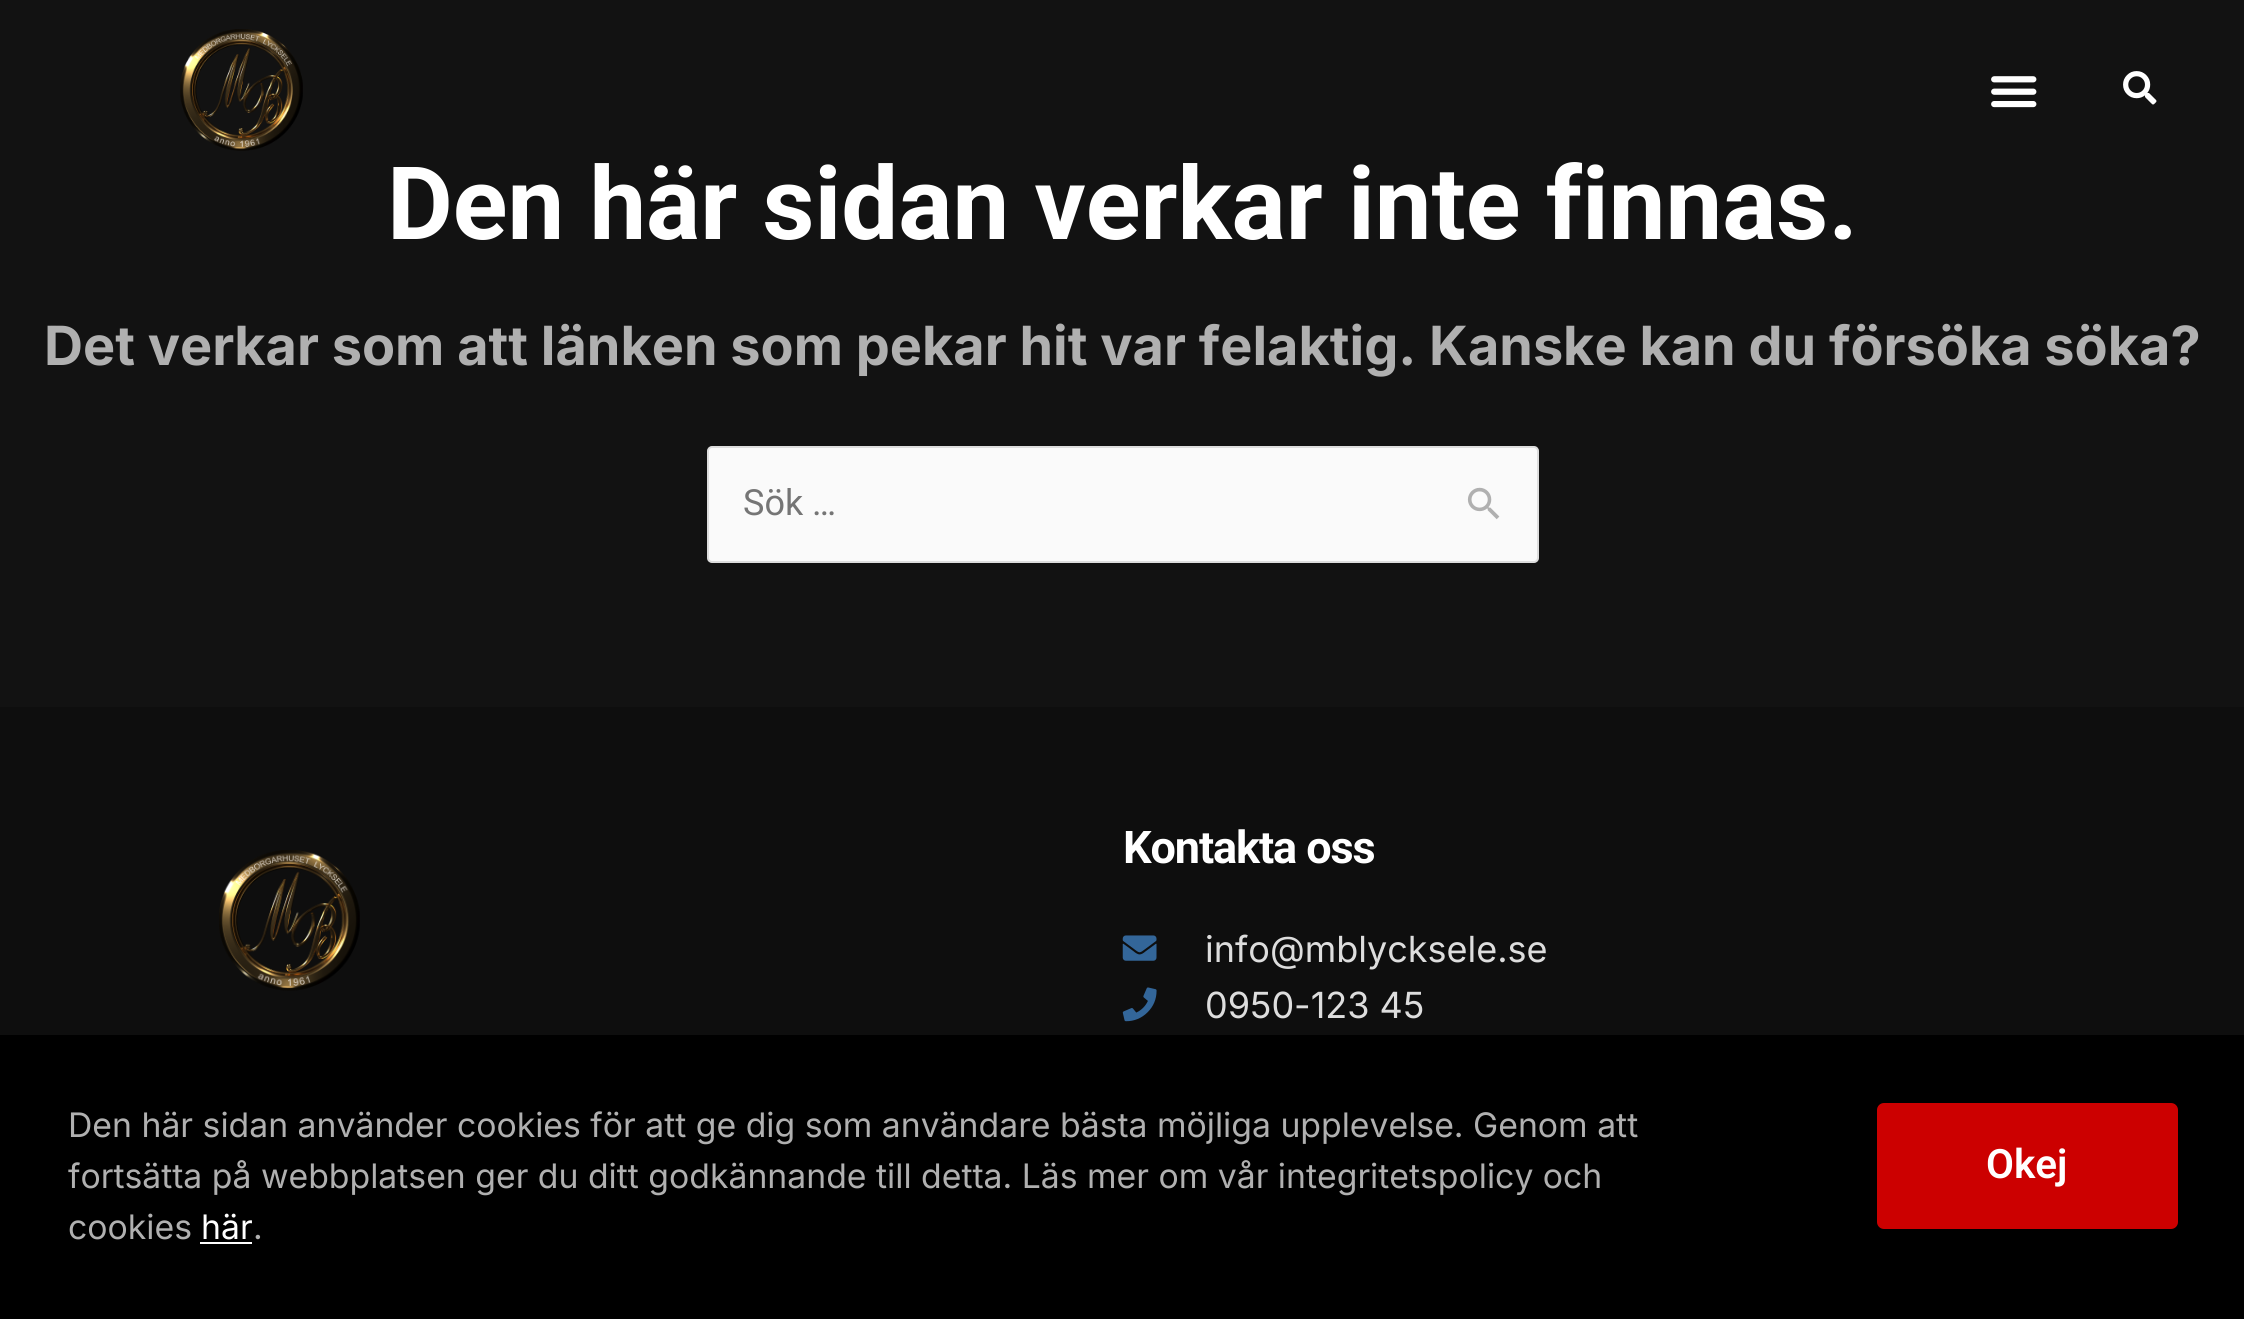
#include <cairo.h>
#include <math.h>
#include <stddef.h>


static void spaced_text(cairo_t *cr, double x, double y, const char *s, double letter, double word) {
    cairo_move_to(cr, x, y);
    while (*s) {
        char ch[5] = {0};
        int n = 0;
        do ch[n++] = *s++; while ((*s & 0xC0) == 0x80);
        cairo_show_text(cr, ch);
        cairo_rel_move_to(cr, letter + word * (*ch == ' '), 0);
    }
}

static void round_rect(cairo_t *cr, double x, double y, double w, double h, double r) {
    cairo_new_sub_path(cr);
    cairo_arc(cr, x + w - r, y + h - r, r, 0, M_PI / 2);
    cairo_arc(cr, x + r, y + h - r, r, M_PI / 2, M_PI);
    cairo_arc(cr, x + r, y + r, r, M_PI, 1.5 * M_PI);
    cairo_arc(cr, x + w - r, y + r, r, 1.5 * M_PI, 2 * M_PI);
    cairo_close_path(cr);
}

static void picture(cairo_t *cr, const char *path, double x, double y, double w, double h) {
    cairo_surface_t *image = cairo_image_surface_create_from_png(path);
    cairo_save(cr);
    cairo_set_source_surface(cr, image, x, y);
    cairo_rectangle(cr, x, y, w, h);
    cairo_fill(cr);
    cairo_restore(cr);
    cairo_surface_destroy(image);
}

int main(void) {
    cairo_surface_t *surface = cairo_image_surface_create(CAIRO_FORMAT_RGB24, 2244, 1319);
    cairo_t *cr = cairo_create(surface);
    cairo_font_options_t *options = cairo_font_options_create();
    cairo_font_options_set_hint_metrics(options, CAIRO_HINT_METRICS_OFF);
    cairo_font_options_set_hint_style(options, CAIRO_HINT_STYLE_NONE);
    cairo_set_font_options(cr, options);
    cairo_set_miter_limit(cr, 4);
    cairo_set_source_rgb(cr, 0.071, 0.071, 0.071);
    cairo_paint(cr);
    picture(cr, "img1.png", 180, 29, 123, 122);
    picture(cr, "img2.png", 1991, 76, 46, 32);
    picture(cr, "img3.png", 2123, 71, 34, 34);
    cairo_select_font_face(cr, "Roboto", CAIRO_FONT_SLANT_NORMAL, CAIRO_FONT_WEIGHT_BOLD);
    cairo_set_font_size(cr, 101.25);
    cairo_set_source_rgb(cr, 1, 1, 1);
    cairo_move_to(cr, 387, 239);
    cairo_show_text(cr, "Den här sidan verkar inte finnas.");
    cairo_select_font_face(cr, "Inter", CAIRO_FONT_SLANT_NORMAL, CAIRO_FONT_WEIGHT_BOLD);
    cairo_set_font_size(cr, 54);
    cairo_set_source_rgb(cr, 0.69, 0.69, 0.69);
    cairo_move_to(cr, 44, 365);
    cairo_show_text(cr, "Det verkar som att länken som pekar hit var felaktig. Kanske kan du försöka söka?");
    cairo_set_source_rgb(cr, 0.98, 0.98, 0.98);
    round_rect(cr, 708, 447, 830, 115, 4);
    cairo_fill_preserve(cr);
    cairo_set_source_rgb(cr, 0.867, 0.867, 0.867);
    cairo_stroke(cr);
    cairo_select_font_face(cr, "Roboto", CAIRO_FONT_SLANT_NORMAL, CAIRO_FONT_WEIGHT_NORMAL);
    cairo_set_font_size(cr, 36);
    cairo_set_source_rgb(cr, 0.459, 0.459, 0.459);
    cairo_move_to(cr, 743, 515);
    cairo_show_text(cr, "Sök …");
    picture(cr, "img4.png", 1467, 487, 33, 33);
    cairo_set_source_rgb(cr, 0.055, 0.055, 0.055);
    cairo_rectangle(cr, 0, 707, 2244, 328);
    cairo_fill(cr);
    picture(cr, "img5.png", 219, 850, 141, 141);
    cairo_select_font_face(cr, "Roboto", CAIRO_FONT_SLANT_NORMAL, CAIRO_FONT_WEIGHT_BOLD);
    cairo_set_font_size(cr, 45);
    cairo_set_source_rgb(cr, 1, 1, 1);
    spaced_text(cr, 1123, 863, "Kontakta oss", -1.1, 0);
    picture(cr, "img6.png", 1122, 935, 35, 26);
    cairo_select_font_face(cr, "Inter", CAIRO_FONT_SLANT_NORMAL, CAIRO_FONT_WEIGHT_NORMAL);
    cairo_set_font_size(cr, 36);
    cairo_set_source_rgb(cr, 0.867, 0.867, 0.867);
    cairo_move_to(cr, 1205, 962);
    cairo_show_text(cr, "info@mblycksele.se");
    picture(cr, "img7.png", 1122, 987, 35, 35);
    cairo_move_to(cr, 1205, 1018);
    cairo_show_text(cr, "0950-123 45");
    cairo_set_source_rgb(cr, 0, 0, 0);
    cairo_rectangle(cr, 0, 1035, 2244, 284);
    cairo_fill(cr);
    cairo_set_font_size(cr, 33.75);
    cairo_set_source_rgb(cr, 0.69, 0.69, 0.69);
    cairo_move_to(cr, 68, 1137);
    cairo_show_text(cr, "Den här sidan använder cookies för att ge dig som användare bästa möjliga upplevelse. Genom att");
    cairo_move_to(cr, 68, 1188);
    cairo_show_text(cr, "fortsätta på webbplatsen ger du ditt godkännande till detta. Läs mer om vår integritetspolicy och");
    cairo_move_to(cr, 68, 1239);
    cairo_show_text(cr, "cookies");
    cairo_set_source_rgb(cr, 1, 1, 1);
    cairo_move_to(cr, 201, 1239);
    cairo_show_text(cr, "här");
    cairo_rectangle(cr, 200, 1242, 52, 2);
    cairo_fill(cr);
    cairo_set_source_rgb(cr, 0.69, 0.69, 0.69);
    cairo_move_to(cr, 253, 1239);
    cairo_show_text(cr, ".");
    cairo_set_source_rgb(cr, 0.8, 0, 0);
    round_rect(cr, 1877, 1103, 301, 126, 7);
    cairo_fill(cr);
    cairo_select_font_face(cr, "Roboto SemiBold", CAIRO_FONT_SLANT_NORMAL, CAIRO_FONT_WEIGHT_NORMAL);
    cairo_set_font_size(cr, 40.5);
    cairo_set_source_rgb(cr, 1, 1, 1);
    cairo_move_to(cr, 1986, 1178);
    cairo_show_text(cr, "Okej");
    cairo_surface_write_to_png(surface, "page.png");
    cairo_font_options_destroy(options);
    cairo_destroy(cr);
    cairo_surface_destroy(surface);
    return 0;
}
